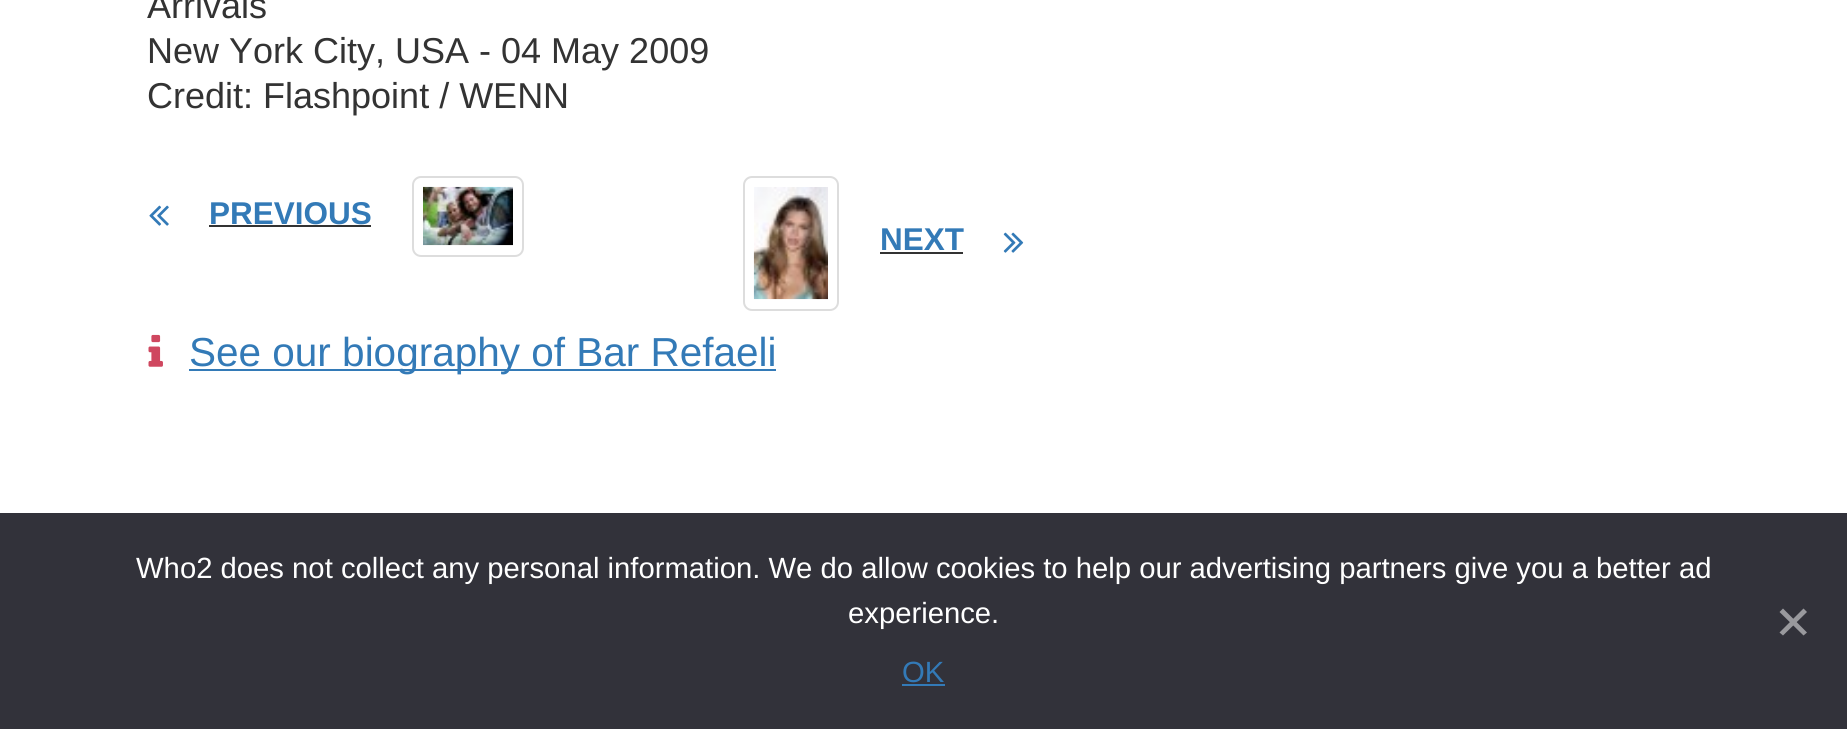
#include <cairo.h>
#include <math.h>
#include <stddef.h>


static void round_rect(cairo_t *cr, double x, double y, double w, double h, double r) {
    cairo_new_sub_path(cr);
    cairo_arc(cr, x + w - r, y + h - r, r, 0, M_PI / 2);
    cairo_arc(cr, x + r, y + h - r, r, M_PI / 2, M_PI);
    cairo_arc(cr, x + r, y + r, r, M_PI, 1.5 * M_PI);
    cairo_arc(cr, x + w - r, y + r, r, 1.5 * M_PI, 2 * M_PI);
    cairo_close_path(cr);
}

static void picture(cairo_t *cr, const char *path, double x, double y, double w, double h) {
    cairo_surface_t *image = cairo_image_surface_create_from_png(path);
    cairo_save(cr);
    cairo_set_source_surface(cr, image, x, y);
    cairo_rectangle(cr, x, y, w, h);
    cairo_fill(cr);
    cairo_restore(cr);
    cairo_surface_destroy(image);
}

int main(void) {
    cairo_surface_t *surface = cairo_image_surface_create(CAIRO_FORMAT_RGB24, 1847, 729);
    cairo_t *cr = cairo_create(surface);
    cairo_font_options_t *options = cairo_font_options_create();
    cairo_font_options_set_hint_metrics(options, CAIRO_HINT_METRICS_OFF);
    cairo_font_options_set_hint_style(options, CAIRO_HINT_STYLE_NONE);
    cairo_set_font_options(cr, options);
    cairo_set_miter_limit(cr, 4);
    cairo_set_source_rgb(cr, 1, 1, 1);
    cairo_paint(cr);
    cairo_select_font_face(cr, "Liberation Sans", CAIRO_FONT_SLANT_NORMAL, CAIRO_FONT_WEIGHT_NORMAL);
    cairo_set_font_size(cr, 36);
    cairo_set_source_rgb(cr, 0.2, 0.2, 0.2);
    cairo_move_to(cr, 147, 18);
    cairo_show_text(cr, "Arrivals");
    cairo_move_to(cr, 147, 63);
    cairo_show_text(cr, "New York City, USA - 04 May 2009");
    cairo_move_to(cr, 147, 108);
    cairo_show_text(cr, "Credit: Flashpoint / WENN");
    picture(cr, "img1.png", 149, 205, 20, 21);
    cairo_select_font_face(cr, "Liberation Sans", CAIRO_FONT_SLANT_NORMAL, CAIRO_FONT_WEIGHT_BOLD);
    cairo_set_font_size(cr, 31.5);
    cairo_set_source_rgb(cr, 0.2, 0.478, 0.718);
    cairo_move_to(cr, 209, 224);
    cairo_show_text(cr, "PREVIOUS");
    cairo_set_source_rgb(cr, 0.2, 0.2, 0.2);
    cairo_rectangle(cr, 209, 225, 162, 2);
    cairo_fill(cr);
    round_rect(cr, 413, 177, 110, 79, 8);
    cairo_set_source_rgb(cr, 0.867, 0.867, 0.867);
    cairo_stroke(cr);
    picture(cr, "img2.png", 423, 186, 90, 60);
    round_rect(cr, 744, 177, 94, 133, 8);
    cairo_stroke(cr);
    picture(cr, "img3.png", 753, 187, 75, 113);
    cairo_set_source_rgb(cr, 0.2, 0.478, 0.718);
    cairo_move_to(cr, 880, 250);
    cairo_show_text(cr, "NEXT");
    cairo_set_source_rgb(cr, 0.2, 0.2, 0.2);
    cairo_rectangle(cr, 880, 252, 83, 2);
    cairo_fill(cr);
    picture(cr, "img4.png", 1003, 232, 21, 21);
    picture(cr, "img5.png", 148, 334, 15, 33);
    cairo_set_source_rgb(cr, 0.2, 0.478, 0.718);
    cairo_rectangle(cr, 189, 369, 587, 2);
    cairo_fill(cr);
    cairo_select_font_face(cr, "Liberation Sans", CAIRO_FONT_SLANT_NORMAL, CAIRO_FONT_WEIGHT_NORMAL);
    cairo_set_font_size(cr, 40.5);
    cairo_move_to(cr, 189, 366);
    cairo_show_text(cr, "See our biography of Bar Refaeli");
    cairo_set_source_rgb(cr, 0.196, 0.196, 0.227);
    cairo_rectangle(cr, 0, 513, 1847, 216);
    cairo_fill(cr);
    cairo_set_font_size(cr, 29.25);
    cairo_set_source_rgb(cr, 1, 1, 1);
    cairo_move_to(cr, 136, 578);
    cairo_show_text(cr, "Who2 does not collect any personal information. We do allow cookies to help our advertising partners give you a better ad");
    cairo_move_to(cr, 848, 623);
    cairo_show_text(cr, "experience.");
    cairo_set_source_rgb(cr, 0.6, 0.6, 0.616);
    cairo_new_path(cr);
    cairo_move_to(cr, 1803.5, 608.5);
    cairo_line_to(cr, 1807, 612);
    cairo_line_to(cr, 1783, 635.5);
    cairo_line_to(cr, 1779.5, 632.5);
    cairo_close_path(cr);
    cairo_fill(cr);
    cairo_new_path(cr);
    cairo_move_to(cr, 1779.5, 612);
    cairo_line_to(cr, 1783, 608.5);
    cairo_line_to(cr, 1807, 632.5);
    cairo_line_to(cr, 1803.5, 635.5);
    cairo_close_path(cr);
    cairo_fill(cr);
    cairo_set_source_rgb(cr, 0.2, 0.478, 0.718);
    cairo_move_to(cr, 902, 682);
    cairo_show_text(cr, "OK");
    cairo_rectangle(cr, 902, 684, 43, 2);
    cairo_fill(cr);
    cairo_surface_write_to_png(surface, "page.png");
    cairo_font_options_destroy(options);
    cairo_destroy(cr);
    cairo_surface_destroy(surface);
    return 0;
}
